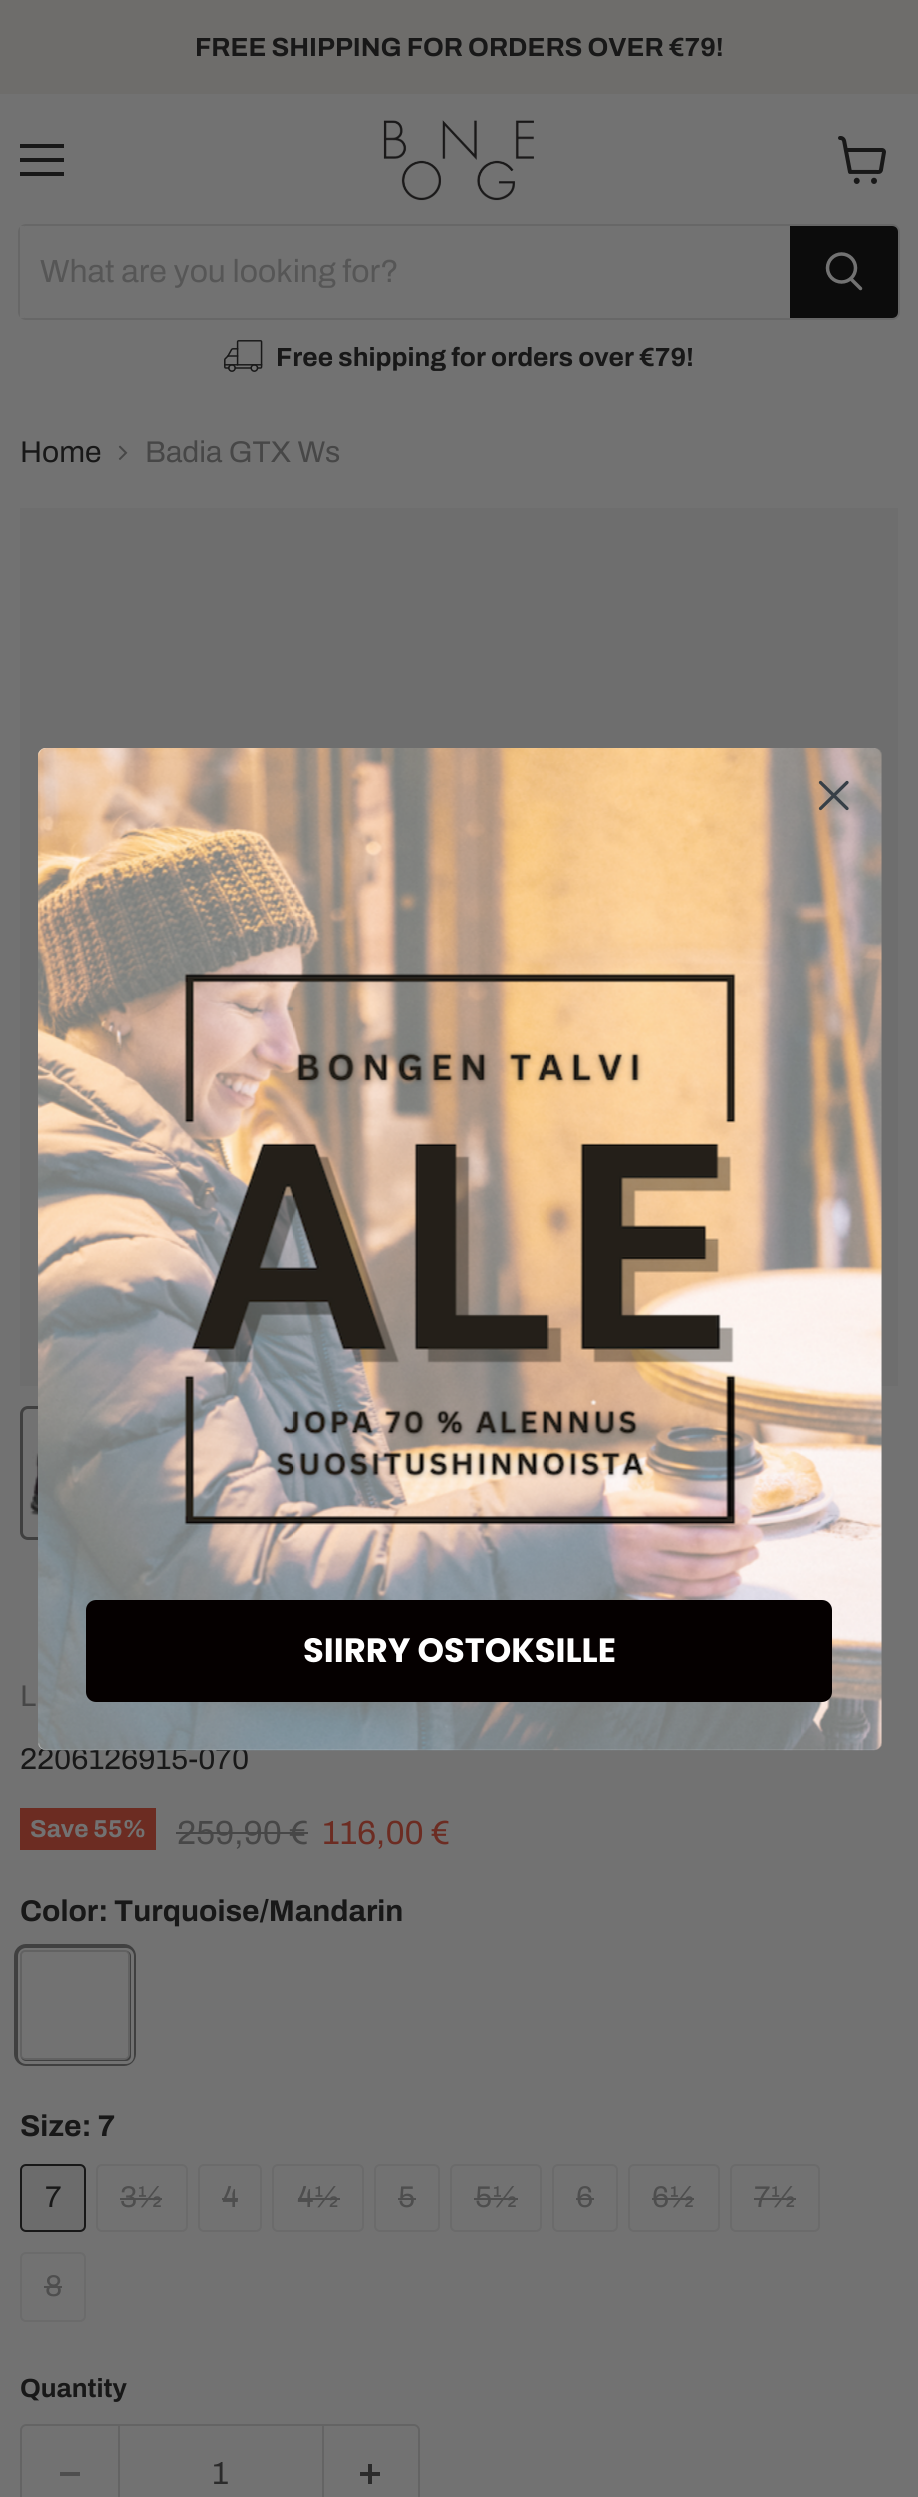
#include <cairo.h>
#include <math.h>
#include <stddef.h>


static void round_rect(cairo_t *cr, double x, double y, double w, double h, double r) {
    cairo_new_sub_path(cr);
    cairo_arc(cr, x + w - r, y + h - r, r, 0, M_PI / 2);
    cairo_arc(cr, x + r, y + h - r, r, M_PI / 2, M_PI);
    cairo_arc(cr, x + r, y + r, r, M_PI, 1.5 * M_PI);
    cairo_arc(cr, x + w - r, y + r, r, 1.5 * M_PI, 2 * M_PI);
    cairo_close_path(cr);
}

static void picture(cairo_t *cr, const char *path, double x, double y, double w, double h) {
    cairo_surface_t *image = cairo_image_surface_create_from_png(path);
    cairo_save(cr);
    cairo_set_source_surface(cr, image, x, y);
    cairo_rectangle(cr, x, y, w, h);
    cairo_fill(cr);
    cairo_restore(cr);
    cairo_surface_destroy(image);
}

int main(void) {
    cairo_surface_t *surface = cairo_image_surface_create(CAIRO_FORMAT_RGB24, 918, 2497);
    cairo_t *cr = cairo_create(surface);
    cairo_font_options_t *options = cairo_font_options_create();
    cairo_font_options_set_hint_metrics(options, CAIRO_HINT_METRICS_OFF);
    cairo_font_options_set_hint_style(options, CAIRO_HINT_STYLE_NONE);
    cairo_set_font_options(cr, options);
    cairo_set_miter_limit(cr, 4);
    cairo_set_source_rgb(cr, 0.447, 0.447, 0.447);
    cairo_paint(cr);
    cairo_set_source_rgb(cr, 0.431, 0.427, 0.42);
    cairo_rectangle(cr, 0, 0, 918, 94);
    cairo_fill(cr);
    cairo_select_font_face(cr, "Archivo", CAIRO_FONT_SLANT_NORMAL, CAIRO_FONT_WEIGHT_BOLD);
    cairo_set_font_size(cr, 26.25);
    cairo_set_source_rgb(cr, 0.094, 0.094, 0.094);
    cairo_move_to(cr, 195, 56);
    cairo_show_text(cr, "FREE SHIPPING FOR ORDERS OVER €79!");
    cairo_rectangle(cr, 20, 144, 44, 4);
    cairo_fill(cr);
    cairo_rectangle(cr, 20, 158, 44, 4);
    cairo_fill(cr);
    cairo_rectangle(cr, 20, 172, 44, 4);
    cairo_fill(cr);
    picture(cr, "img1.png", 838, 136, 48, 48);
    picture(cr, "img2.png", 383, 120, 151, 81);
    round_rect(cr, 19, 225, 880, 94, 7);
    cairo_set_source_rgba(cr, 0.247, 0.247, 0.247, 0.2);
    cairo_stroke(cr);
    cairo_set_source_rgb(cr, 0.447, 0.447, 0.447);
    cairo_rectangle(cr, 20, 226, 4, 92);
    cairo_fill(cr);
    cairo_select_font_face(cr, "Archivo SemiBold", CAIRO_FONT_SLANT_NORMAL, CAIRO_FONT_WEIGHT_NORMAL);
    cairo_set_font_size(cr, 32);
    cairo_set_source_rgb(cr, 0.337, 0.337, 0.337);
    cairo_move_to(cr, 40, 282);
    cairo_show_text(cr, "What are you looking for?");
    cairo_set_source_rgb(cr, 0.047, 0.047, 0.047);
    cairo_new_path(cr);
    cairo_move_to(cr, 791, 227);
    cairo_line_to(cr, 892, 227);
    cairo_curve_to(cr, 895, 227, 897, 229, 897, 232);
    cairo_line_to(cr, 897, 312);
    cairo_curve_to(cr, 897, 315, 895, 317, 892, 317);
    cairo_line_to(cr, 791, 317);
    cairo_close_path(cr);
    cairo_fill_preserve(cr);
    cairo_stroke(cr);
    cairo_new_path(cr);
    cairo_move_to(cr, 860.5, 288.5);
    cairo_line_to(cr, 851, 279);
    cairo_set_source_rgb(cr, 0.447, 0.447, 0.447);
    cairo_set_line_width(cr, 3.5);
    cairo_set_line_cap(cr, CAIRO_LINE_CAP_ROUND);
    cairo_stroke(cr);
    cairo_arc(cr, 841.5, 268, 14, 0, 2 * M_PI);
    cairo_set_line_cap(cr, CAIRO_LINE_CAP_BUTT);
    cairo_stroke(cr);
    picture(cr, "img3.png", 224, 340, 39, 32);
    cairo_select_font_face(cr, "Archivo", CAIRO_FONT_SLANT_NORMAL, CAIRO_FONT_WEIGHT_BOLD);
    cairo_set_font_size(cr, 26.25);
    cairo_set_source_rgb(cr, 0.094, 0.094, 0.094);
    cairo_move_to(cr, 276, 366);
    cairo_show_text(cr, "Free shipping for orders over €79!");
    cairo_select_font_face(cr, "Archivo SemiBold", CAIRO_FONT_SLANT_NORMAL, CAIRO_FONT_WEIGHT_NORMAL);
    cairo_set_font_size(cr, 30);
    cairo_move_to(cr, 20, 462);
    cairo_show_text(cr, "Home");
    picture(cr, "img4.png", 118, 445, 10, 15);
    cairo_set_source_rgb(cr, 0.278, 0.278, 0.278);
    cairo_move_to(cr, 145, 462);
    cairo_show_text(cr, "Badia GTX Ws");
    cairo_set_source_rgb(cr, 0.431, 0.431, 0.431);
    cairo_rectangle(cr, 20, 508, 878, 878);
    cairo_fill(cr);
    round_rect(cr, 21.5, 1407.5, 131, 131, 6.5);
    cairo_set_source_rgb(cr, 0.251, 0.251, 0.251);
    cairo_set_line_width(cr, 3);
    cairo_stroke(cr);
    picture(cr, "img5.png", 29, 1425, 9, 91);
    cairo_set_source_rgb(cr, 0.278, 0.278, 0.278);
    cairo_move_to(cr, 20, 1706);
    cairo_show_text(cr, "L");
    cairo_set_source_rgb(cr, 0.094, 0.094, 0.094);
    cairo_move_to(cr, 20, 1769);
    cairo_show_text(cr, "2206126915-070");
    cairo_set_source_rgb(cr, 0.424, 0.173, 0.133);
    cairo_rectangle(cr, 20, 1808, 136, 42);
    cairo_fill(cr);
    cairo_select_font_face(cr, "Archivo", CAIRO_FONT_SLANT_NORMAL, CAIRO_FONT_WEIGHT_BOLD);
    cairo_set_font_size(cr, 24.5);
    cairo_set_source_rgb(cr, 0.447, 0.447, 0.447);
    cairo_move_to(cr, 30, 1837);
    cairo_show_text(cr, "Save 55%");
    cairo_select_font_face(cr, "Archivo SemiBold", CAIRO_FONT_SLANT_NORMAL, CAIRO_FONT_WEIGHT_NORMAL);
    cairo_set_font_size(cr, 33.5);
    cairo_set_source_rgb(cr, 0.278, 0.278, 0.278);
    cairo_move_to(cr, 177, 1844);
    cairo_show_text(cr, "259,90 €");
    cairo_rectangle(cr, 176, 1832, 132, 2);
    cairo_fill(cr);
    cairo_set_source_rgb(cr, 0.424, 0.173, 0.133);
    cairo_move_to(cr, 322, 1844);
    cairo_show_text(cr, "116,00 €");
    cairo_select_font_face(cr, "Archivo", CAIRO_FONT_SLANT_NORMAL, CAIRO_FONT_WEIGHT_BOLD);
    cairo_set_font_size(cr, 30);
    cairo_set_source_rgb(cr, 0.094, 0.094, 0.094);
    cairo_move_to(cr, 20, 1921);
    cairo_show_text(cr, "Color: Turquoise/Mandarin");
    round_rect(cr, 17, 1947, 116, 116, 9);
    cairo_set_source_rgb(cr, 0.251, 0.251, 0.251);
    cairo_set_line_width(cr, 6);
    cairo_stroke(cr);
    round_rect(cr, 19.5, 1949.5, 113, 113, 6.5);
    cairo_set_source_rgb(cr, 0.447, 0.447, 0.447);
    cairo_set_line_width(cr, 3);
    cairo_stroke(cr);
    round_rect(cr, 21, 1951, 108, 108, 4);
    cairo_set_source_rgba(cr, 0.047, 0.047, 0.047, 0.15);
    cairo_set_line_width(cr, 2);
    cairo_stroke(cr);
    cairo_set_source_rgb(cr, 0.094, 0.094, 0.094);
    cairo_move_to(cr, 20, 2136);
    cairo_show_text(cr, "Size: 7");
    cairo_set_source_rgb(cr, 0.424, 0.424, 0.424);
    round_rect(cr, 21, 2165, 64, 66, 5);
    cairo_fill_preserve(cr);
    cairo_set_source_rgb(cr, 0.094, 0.094, 0.094);
    cairo_stroke(cr);
    cairo_select_font_face(cr, "Archivo SemiBold", CAIRO_FONT_SLANT_NORMAL, CAIRO_FONT_WEIGHT_NORMAL);
    cairo_move_to(cr, 45, 2207);
    cairo_show_text(cr, "7");
    round_rect(cr, 97, 2165, 90, 66, 5);
    cairo_set_source_rgb(cr, 0.42, 0.42, 0.42);
    cairo_stroke(cr);
    cairo_set_source_rgb(cr, 0.306, 0.306, 0.306);
    cairo_move_to(cr, 120, 2207);
    cairo_show_text(cr, "3½");
    cairo_rectangle(cr, 120, 2198, 42, 2);
    cairo_fill(cr);
    round_rect(cr, 199, 2165, 62, 66, 5);
    cairo_set_source_rgb(cr, 0.42, 0.42, 0.42);
    cairo_stroke(cr);
    cairo_set_source_rgb(cr, 0.306, 0.306, 0.306);
    cairo_move_to(cr, 222, 2207);
    cairo_show_text(cr, "4");
    cairo_rectangle(cr, 222, 2198, 16, 2);
    cairo_fill(cr);
    round_rect(cr, 273, 2165, 90, 66, 5);
    cairo_set_source_rgb(cr, 0.42, 0.42, 0.42);
    cairo_stroke(cr);
    cairo_set_source_rgb(cr, 0.306, 0.306, 0.306);
    cairo_move_to(cr, 297, 2207);
    cairo_show_text(cr, "4½");
    cairo_rectangle(cr, 298, 2198, 42, 2);
    cairo_fill(cr);
    round_rect(cr, 375, 2165, 64, 66, 5);
    cairo_set_source_rgb(cr, 0.42, 0.42, 0.42);
    cairo_stroke(cr);
    cairo_set_source_rgb(cr, 0.306, 0.306, 0.306);
    cairo_move_to(cr, 398, 2207);
    cairo_show_text(cr, "5");
    cairo_rectangle(cr, 398, 2198, 18, 2);
    cairo_fill(cr);
    round_rect(cr, 451, 2165, 90, 66, 5);
    cairo_set_source_rgb(cr, 0.42, 0.42, 0.42);
    cairo_stroke(cr);
    cairo_set_source_rgb(cr, 0.306, 0.306, 0.306);
    cairo_move_to(cr, 475, 2207);
    cairo_show_text(cr, "5½");
    cairo_rectangle(cr, 474, 2198, 44, 2);
    cairo_fill(cr);
    round_rect(cr, 553, 2165, 64, 66, 5);
    cairo_set_source_rgb(cr, 0.42, 0.42, 0.42);
    cairo_stroke(cr);
    cairo_set_source_rgb(cr, 0.306, 0.306, 0.306);
    cairo_move_to(cr, 576, 2207);
    cairo_show_text(cr, "6");
    cairo_rectangle(cr, 576, 2198, 18, 2);
    cairo_fill(cr);
    round_rect(cr, 629, 2165, 90, 66, 5);
    cairo_set_source_rgb(cr, 0.42, 0.42, 0.42);
    cairo_stroke(cr);
    cairo_set_source_rgb(cr, 0.306, 0.306, 0.306);
    cairo_move_to(cr, 652, 2207);
    cairo_show_text(cr, "6½");
    cairo_rectangle(cr, 652, 2198, 42, 2);
    cairo_fill(cr);
    round_rect(cr, 731, 2165, 88, 66, 5);
    cairo_set_source_rgb(cr, 0.42, 0.42, 0.42);
    cairo_stroke(cr);
    cairo_set_source_rgb(cr, 0.306, 0.306, 0.306);
    cairo_move_to(cr, 754, 2207);
    cairo_show_text(cr, "7½");
    cairo_rectangle(cr, 754, 2198, 42, 2);
    cairo_fill(cr);
    round_rect(cr, 21, 2253, 64, 68, 5);
    cairo_set_source_rgb(cr, 0.42, 0.42, 0.42);
    cairo_stroke(cr);
    cairo_set_source_rgb(cr, 0.306, 0.306, 0.306);
    cairo_move_to(cr, 45, 2296);
    cairo_show_text(cr, "8");
    cairo_rectangle(cr, 44, 2286, 18, 2);
    cairo_fill(cr);
    cairo_select_font_face(cr, "Archivo", CAIRO_FONT_SLANT_NORMAL, CAIRO_FONT_WEIGHT_BOLD);
    cairo_set_font_size(cr, 26.25);
    cairo_set_source_rgb(cr, 0.094, 0.094, 0.094);
    cairo_move_to(cr, 20, 2397);
    cairo_show_text(cr, "Quantity");
    cairo_set_source_rgb(cr, 0.392, 0.392, 0.392);
    cairo_set_fill_rule(cr, CAIRO_FILL_RULE_EVEN_ODD);
    cairo_new_path(cr);
    cairo_move_to(cr, 26, 2424);
    cairo_line_to(cr, 118, 2424);
    cairo_line_to(cr, 118, 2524);
    cairo_line_to(cr, 26, 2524);
    cairo_curve_to(cr, 23, 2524, 20, 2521, 20, 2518);
    cairo_line_to(cr, 20, 2430);
    cairo_curve_to(cr, 20, 2427, 23, 2424, 26, 2424);
    cairo_close_path(cr);
    cairo_move_to(cr, 26, 2426);
    cairo_line_to(cr, 118, 2426);
    cairo_line_to(cr, 118, 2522);
    cairo_line_to(cr, 26, 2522);
    cairo_curve_to(cr, 24, 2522, 22, 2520, 22, 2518);
    cairo_line_to(cr, 22, 2430);
    cairo_curve_to(cr, 22, 2428, 24, 2426, 26, 2426);
    cairo_close_path(cr);
    cairo_fill(cr);
    cairo_set_source_rgb(cr, 0.306, 0.306, 0.306);
    cairo_rectangle(cr, 60, 2472, 20, 4);
    cairo_fill(cr);
    cairo_rectangle(cr, 119, 2425, 204, 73);
    cairo_set_source_rgb(cr, 0.392, 0.392, 0.392);
    cairo_stroke(cr);
    cairo_select_font_face(cr, "Archivo SemiBold", CAIRO_FONT_SLANT_NORMAL, CAIRO_FONT_WEIGHT_NORMAL);
    cairo_set_font_size(cr, 32);
    cairo_set_source_rgb(cr, 0.169, 0.169, 0.169);
    cairo_move_to(cr, 212, 2484);
    cairo_show_text(cr, "1");
    cairo_set_source_rgb(cr, 0.392, 0.392, 0.392);
    cairo_new_path(cr);
    cairo_move_to(cr, 324, 2424);
    cairo_line_to(cr, 414, 2424);
    cairo_curve_to(cr, 417, 2424, 420, 2427, 420, 2430);
    cairo_line_to(cr, 420, 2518);
    cairo_curve_to(cr, 420, 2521, 417, 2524, 414, 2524);
    cairo_line_to(cr, 324, 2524);
    cairo_close_path(cr);
    cairo_move_to(cr, 324, 2426);
    cairo_line_to(cr, 414, 2426);
    cairo_curve_to(cr, 416, 2426, 418, 2428, 418, 2430);
    cairo_line_to(cr, 418, 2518);
    cairo_curve_to(cr, 418, 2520, 416, 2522, 414, 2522);
    cairo_line_to(cr, 324, 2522);
    cairo_close_path(cr);
    cairo_fill(cr);
    picture(cr, "img6.png", 360, 2464, 20, 20);
    cairo_set_source_rgb(cr, 1, 1, 1);
    round_rect(cr, 38, 748, 842, 1002, 8);
    cairo_fill(cr);
    picture(cr, "img7.png", 38, 748, 844, 1003);
    cairo_new_path(cr);
    cairo_move_to(cr, 820.5, 782.5);
    cairo_line_to(cr, 847, 808.5);
    cairo_move_to(cr, 820.5, 808.5);
    cairo_line_to(cr, 847, 782.5);
    cairo_close_path(cr);
    cairo_set_source_rgb(cr, 0.216, 0.247, 0.278);
    cairo_set_line_width(cr, 3.3);
    cairo_set_line_cap(cr, CAIRO_LINE_CAP_ROUND);
    cairo_set_line_join(cr, CAIRO_LINE_JOIN_ROUND);
    cairo_stroke(cr);
    cairo_set_source_rgb(cr, 0.02, 0, 0);
    round_rect(cr, 86, 1600, 746, 102, 10);
    cairo_fill(cr);
    cairo_select_font_face(cr, "Poppins", CAIRO_FONT_SLANT_NORMAL, CAIRO_FONT_WEIGHT_BOLD);
    cairo_set_font_size(cr, 33.75);
    cairo_set_source_rgb(cr, 1, 1, 1);
    cairo_move_to(cr, 303, 1662);
    cairo_show_text(cr, "SIIRRY OSTOKSILLE");
    cairo_surface_write_to_png(surface, "page.png");
    cairo_font_options_destroy(options);
    cairo_destroy(cr);
    cairo_surface_destroy(surface);
    return 0;
}
